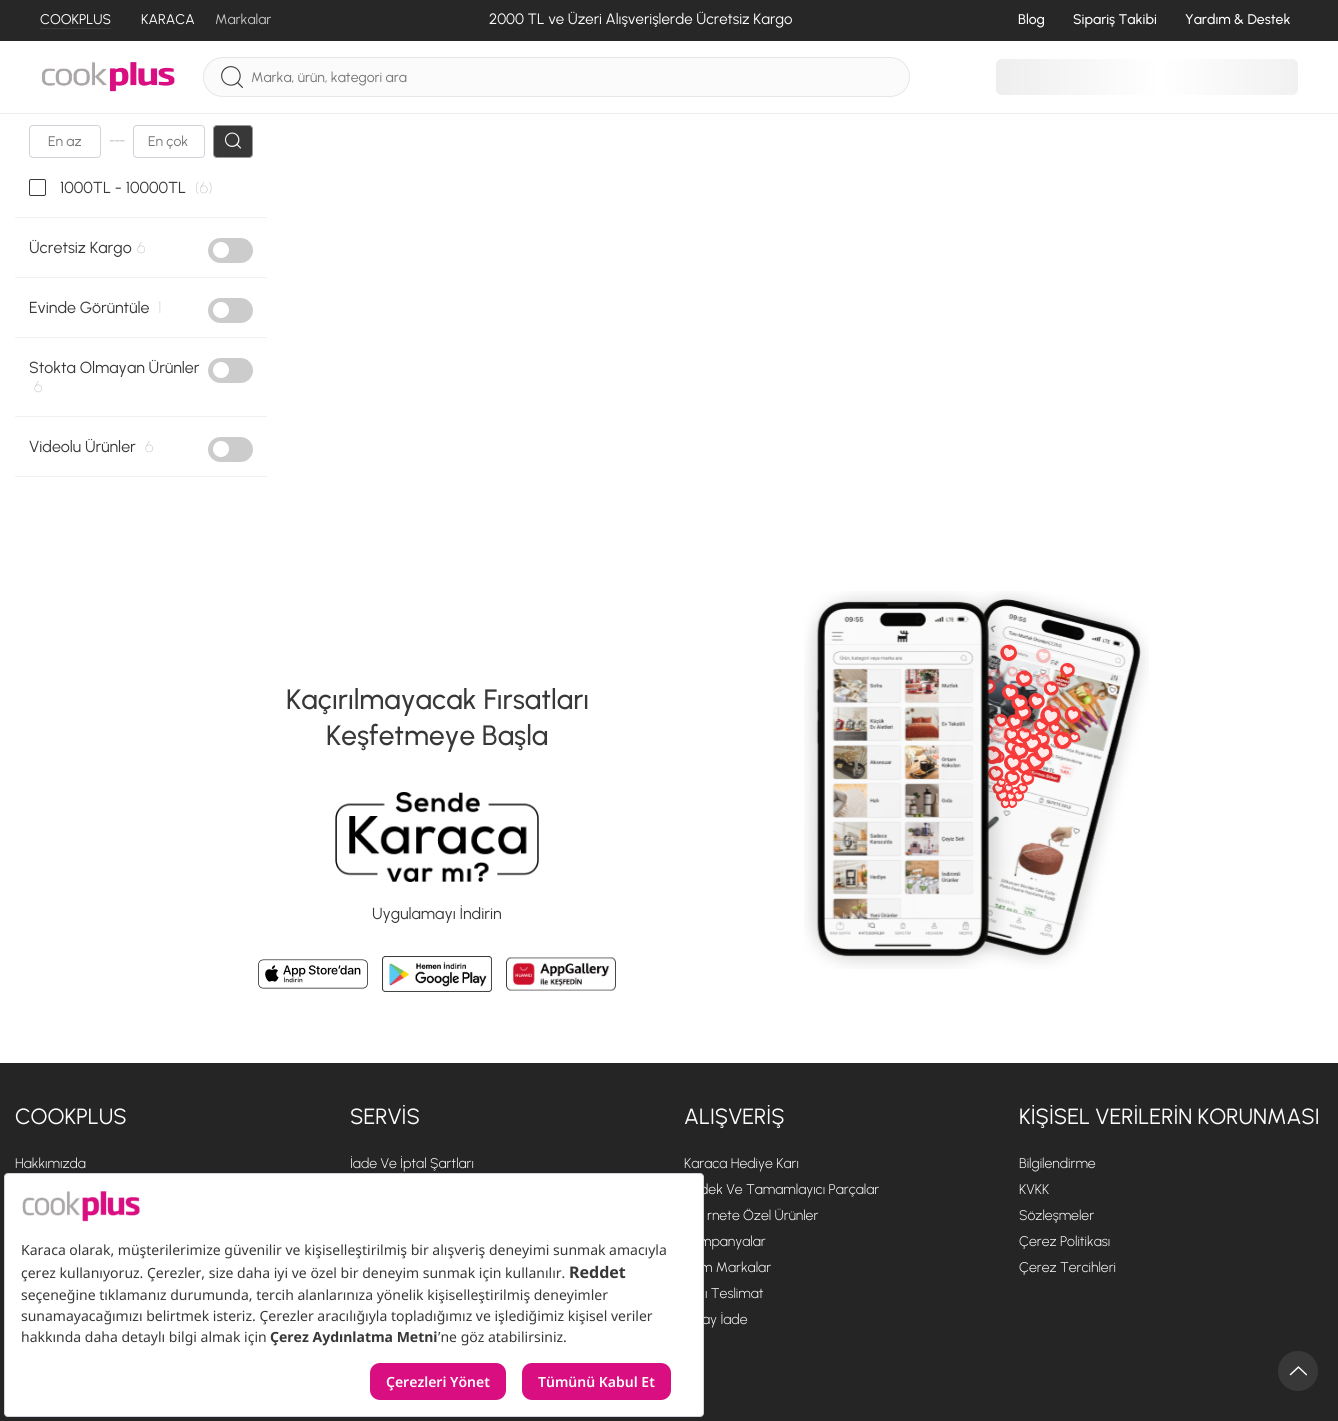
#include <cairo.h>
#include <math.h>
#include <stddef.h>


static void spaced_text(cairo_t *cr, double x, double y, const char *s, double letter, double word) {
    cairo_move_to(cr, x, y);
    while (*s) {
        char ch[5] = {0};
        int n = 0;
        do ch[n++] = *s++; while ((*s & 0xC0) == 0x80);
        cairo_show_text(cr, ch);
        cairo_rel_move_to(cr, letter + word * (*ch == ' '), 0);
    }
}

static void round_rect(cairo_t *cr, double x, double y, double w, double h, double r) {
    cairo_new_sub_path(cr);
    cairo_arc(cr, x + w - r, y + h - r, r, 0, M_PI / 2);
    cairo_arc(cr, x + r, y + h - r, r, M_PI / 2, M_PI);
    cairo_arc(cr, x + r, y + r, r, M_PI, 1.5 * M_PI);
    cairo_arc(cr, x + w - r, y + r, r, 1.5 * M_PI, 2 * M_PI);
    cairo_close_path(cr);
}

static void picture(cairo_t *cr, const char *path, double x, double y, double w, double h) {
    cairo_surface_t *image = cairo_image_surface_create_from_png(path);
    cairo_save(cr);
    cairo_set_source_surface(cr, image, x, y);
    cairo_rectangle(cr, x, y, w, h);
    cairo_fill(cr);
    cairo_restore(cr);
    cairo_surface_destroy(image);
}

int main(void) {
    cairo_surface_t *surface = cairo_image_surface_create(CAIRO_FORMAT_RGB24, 1338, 1421);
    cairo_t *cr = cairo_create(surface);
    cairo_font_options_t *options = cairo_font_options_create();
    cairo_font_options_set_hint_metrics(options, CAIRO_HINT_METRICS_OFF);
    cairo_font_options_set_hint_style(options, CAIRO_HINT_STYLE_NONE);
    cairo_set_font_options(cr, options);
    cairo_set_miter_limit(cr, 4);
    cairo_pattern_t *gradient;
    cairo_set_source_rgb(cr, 1, 1, 1);
    cairo_paint(cr);
    cairo_set_source_rgb(cr, 0.925, 0.925, 0.925);
    cairo_rectangle(cr, 0, 113, 1338, 1);
    cairo_fill(cr);
    cairo_set_source_rgb(cr, 0.153, 0.153, 0.153);
    cairo_rectangle(cr, 0, 0, 1338, 41);
    cairo_fill(cr);
    cairo_select_font_face(cr, "Urbanist", CAIRO_FONT_SLANT_NORMAL, CAIRO_FONT_WEIGHT_NORMAL);
    cairo_set_font_size(cr, 14);
    cairo_set_source_rgb(cr, 1, 1, 1);
    cairo_move_to(cr, 40, 24);
    cairo_show_text(cr, "COOKPLUS");
    cairo_set_source_rgb(cr, 0.22, 0.22, 0.22);
    cairo_rectangle(cr, 40, 28, 71, 1);
    cairo_fill(cr);
    cairo_set_source_rgb(cr, 1, 1, 1);
    cairo_move_to(cr, 141, 24);
    cairo_show_text(cr, "KARACA");
    cairo_set_source_rgb(cr, 0.776, 0.776, 0.776);
    cairo_move_to(cr, 215, 24);
    cairo_show_text(cr, "Markalar");
    cairo_set_font_size(cr, 15);
    cairo_set_source_rgb(cr, 1, 1, 1);
    cairo_move_to(cr, 489, 24);
    cairo_show_text(cr, "2000 TL ve Üzeri Alışverişlerde Ücretsiz Kargo");
    cairo_select_font_face(cr, "Urbanist Medium", CAIRO_FONT_SLANT_NORMAL, CAIRO_FONT_WEIGHT_NORMAL);
    cairo_set_font_size(cr, 14);
    cairo_move_to(cr, 1018, 24);
    cairo_show_text(cr, "Blog");
    cairo_move_to(cr, 1073, 24);
    cairo_show_text(cr, "Sipariş Takibi");
    cairo_move_to(cr, 1185, 24);
    cairo_show_text(cr, "Yardım & Destek");
    picture(cr, "img1.png", 42, 62, 133, 30);
    cairo_set_source_rgb(cr, 0.984, 0.984, 0.984);
    round_rect(cr, 203.5, 57.5, 706, 39, 19.5);
    cairo_fill_preserve(cr);
    cairo_set_source_rgb(cr, 0.902, 0.902, 0.902);
    cairo_set_line_width(cr, 1);
    cairo_stroke(cr);
    picture(cr, "img2.png", 221, 66, 22, 22);
    cairo_select_font_face(cr, "Urbanist", CAIRO_FONT_SLANT_NORMAL, CAIRO_FONT_WEIGHT_NORMAL);
    cairo_set_source_rgb(cr, 0.459, 0.459, 0.459);
    cairo_move_to(cr, 251, 82);
    cairo_show_text(cr, "Marka, ürün, kategori ara");
    cairo_set_source_rgb(cr, 0.933, 0.933, 0.933);
    round_rect(cr, 996, 59, 302, 36, 6);
    cairo_fill(cr);
    cairo_new_path(cr);
    cairo_move_to(cr, 1002, 59);
    cairo_line_to(cr, 1243, 59);
    cairo_line_to(cr, 1243, 95);
    cairo_line_to(cr, 1002, 95);
    cairo_curve_to(cr, 998.5, 95, 996, 92.5, 996, 89);
    cairo_line_to(cr, 996, 65);
    cairo_curve_to(cr, 996, 61.5, 998.5, 59, 1002, 59);
    cairo_close_path(cr);
    cairo_fill(cr);
    gradient = cairo_pattern_create_linear(996, 77, 1326, 77);
    cairo_pattern_add_color_stop_rgba(gradient, 0, 1, 1, 1, 0);
    cairo_pattern_add_color_stop_rgba(gradient, 0.5, 1, 1, 1, 1);
    cairo_pattern_add_color_stop_rgba(gradient, 1, 1, 1, 1, 0);
    cairo_set_source(cr, gradient);
    cairo_pattern_destroy(gradient);
    round_rect(cr, 996, 59, 302, 36, 6);
    cairo_fill(cr);
    cairo_set_source_rgb(cr, 0.945, 0.945, 0.945);
    cairo_rectangle(cr, 15, 217, 252, 1);
    cairo_fill(cr);
    round_rect(cr, 29.5, 125.5, 71, 32, 3.5);
    cairo_set_source_rgb(cr, 0.808, 0.831, 0.855);
    cairo_stroke(cr);
    cairo_set_source_rgb(cr, 0.459, 0.459, 0.459);
    cairo_move_to(cr, 48, 146);
    cairo_show_text(cr, "En az");
    cairo_set_source_rgb(cr, 0.725, 0.725, 0.725);
    spaced_text(cr, 109, 145, "---", -1, 0);
    round_rect(cr, 133.5, 125.5, 71, 32, 3.5);
    cairo_set_source_rgb(cr, 0.808, 0.831, 0.855);
    cairo_stroke(cr);
    cairo_set_source_rgb(cr, 0.459, 0.459, 0.459);
    cairo_move_to(cr, 148, 146);
    cairo_show_text(cr, "En çok");
    cairo_set_source_rgb(cr, 0.22, 0.22, 0.22);
    round_rect(cr, 213.5, 125.5, 39, 32, 3.5);
    cairo_fill_preserve(cr);
    cairo_set_source_rgb(cr, 0.6, 0.6, 0.6);
    cairo_stroke(cr);
    picture(cr, "img3.png", 225, 132, 16, 17);
    round_rect(cr, 29.5, 179.5, 16, 16, 1.5);
    cairo_set_source_rgb(cr, 0.22, 0.22, 0.22);
    cairo_stroke(cr);
    cairo_set_font_size(cr, 16);
    cairo_move_to(cr, 60, 193);
    cairo_show_text(cr, "1000TL - 10000TL");
    cairo_select_font_face(cr, "Urbanist Thin", CAIRO_FONT_SLANT_NORMAL, CAIRO_FONT_WEIGHT_NORMAL);
    cairo_set_source_rgb(cr, 0.725, 0.725, 0.725);
    cairo_move_to(cr, 195, 193);
    cairo_show_text(cr, "(6)");
    cairo_set_source_rgb(cr, 0.945, 0.945, 0.945);
    cairo_rectangle(cr, 15, 277, 252, 1);
    cairo_fill(cr);
    cairo_select_font_face(cr, "Urbanist", CAIRO_FONT_SLANT_NORMAL, CAIRO_FONT_WEIGHT_NORMAL);
    cairo_set_source_rgb(cr, 0.22, 0.22, 0.22);
    cairo_move_to(cr, 29, 253);
    cairo_show_text(cr, "Ücretsiz Kargo");
    cairo_select_font_face(cr, "Urbanist Thin", CAIRO_FONT_SLANT_NORMAL, CAIRO_FONT_WEIGHT_NORMAL);
    cairo_set_source_rgb(cr, 0.725, 0.725, 0.725);
    cairo_move_to(cr, 137, 253);
    cairo_show_text(cr, "6");
    cairo_set_source_rgb(cr, 0.8, 0.8, 0.8);
    round_rect(cr, 208, 238, 45, 25, 12.5);
    cairo_fill(cr);
    cairo_set_source_rgb(cr, 1, 1, 1);
    cairo_arc(cr, 221, 250, 8, 0, 2 * M_PI);
    cairo_fill(cr);
    cairo_set_source_rgb(cr, 0.945, 0.945, 0.945);
    cairo_rectangle(cr, 15, 337, 252, 1);
    cairo_fill(cr);
    cairo_select_font_face(cr, "Urbanist", CAIRO_FONT_SLANT_NORMAL, CAIRO_FONT_WEIGHT_NORMAL);
    cairo_set_source_rgb(cr, 0.22, 0.22, 0.22);
    cairo_move_to(cr, 29, 313);
    cairo_show_text(cr, "Evinde Görüntüle");
    cairo_select_font_face(cr, "Urbanist Thin", CAIRO_FONT_SLANT_NORMAL, CAIRO_FONT_WEIGHT_NORMAL);
    cairo_set_source_rgb(cr, 0.725, 0.725, 0.725);
    cairo_move_to(cr, 158, 313);
    cairo_show_text(cr, "1");
    cairo_set_source_rgb(cr, 0.8, 0.8, 0.8);
    round_rect(cr, 208, 298, 45, 25, 12.5);
    cairo_fill(cr);
    cairo_set_source_rgb(cr, 1, 1, 1);
    cairo_arc(cr, 221, 310, 8, 0, 2 * M_PI);
    cairo_fill(cr);
    cairo_set_source_rgb(cr, 0.945, 0.945, 0.945);
    cairo_rectangle(cr, 15, 416, 252, 1);
    cairo_fill(cr);
    cairo_select_font_face(cr, "Urbanist", CAIRO_FONT_SLANT_NORMAL, CAIRO_FONT_WEIGHT_NORMAL);
    cairo_set_source_rgb(cr, 0.22, 0.22, 0.22);
    cairo_move_to(cr, 29, 373);
    cairo_show_text(cr, "Stokta Olmayan Ürünler");
    cairo_select_font_face(cr, "Urbanist Thin", CAIRO_FONT_SLANT_NORMAL, CAIRO_FONT_WEIGHT_NORMAL);
    cairo_set_source_rgb(cr, 0.725, 0.725, 0.725);
    cairo_move_to(cr, 34, 392);
    cairo_show_text(cr, "6");
    cairo_set_source_rgb(cr, 0.8, 0.8, 0.8);
    round_rect(cr, 208, 358, 45, 25, 12.5);
    cairo_fill(cr);
    cairo_set_source_rgb(cr, 1, 1, 1);
    cairo_arc(cr, 221, 370, 8, 0, 2 * M_PI);
    cairo_fill(cr);
    cairo_set_source_rgb(cr, 0.945, 0.945, 0.945);
    cairo_rectangle(cr, 15, 476, 252, 1);
    cairo_fill(cr);
    cairo_select_font_face(cr, "Urbanist", CAIRO_FONT_SLANT_NORMAL, CAIRO_FONT_WEIGHT_NORMAL);
    cairo_set_source_rgb(cr, 0.22, 0.22, 0.22);
    cairo_move_to(cr, 29, 452);
    cairo_show_text(cr, "Videolu Ürünler");
    cairo_select_font_face(cr, "Urbanist Thin", CAIRO_FONT_SLANT_NORMAL, CAIRO_FONT_WEIGHT_NORMAL);
    cairo_set_source_rgb(cr, 0.725, 0.725, 0.725);
    cairo_move_to(cr, 145, 452);
    cairo_show_text(cr, "6");
    cairo_set_source_rgb(cr, 0.8, 0.8, 0.8);
    round_rect(cr, 208, 437, 45, 25, 12.5);
    cairo_fill(cr);
    cairo_set_source_rgb(cr, 1, 1, 1);
    cairo_arc(cr, 221, 449, 8, 0, 2 * M_PI);
    cairo_fill(cr);
    cairo_select_font_face(cr, "Urbanist Medium", CAIRO_FONT_SLANT_NORMAL, CAIRO_FONT_WEIGHT_NORMAL);
    cairo_set_font_size(cr, 28);
    cairo_set_source_rgb(cr, 0.22, 0.22, 0.22);
    cairo_move_to(cr, 286, 709);
    cairo_show_text(cr, "Kaçırılmayacak Fırsatları");
    cairo_move_to(cr, 326, 745);
    cairo_show_text(cr, "Keşfetmeye Başla");
    picture(cr, "img4.png", 335, 792, 204, 90);
    cairo_select_font_face(cr, "Urbanist", CAIRO_FONT_SLANT_NORMAL, CAIRO_FONT_WEIGHT_NORMAL);
    cairo_set_font_size(cr, 16);
    cairo_move_to(cr, 372, 919);
    cairo_show_text(cr, "Uygulamayı İndirin");
    picture(cr, "img5.png", 258, 959, 110, 30);
    picture(cr, "img6.png", 382, 956, 110, 36);
    picture(cr, "img7.png", 506, 957, 110, 34);
    picture(cr, "img8.png", 804, 591, 345, 378);
    cairo_set_source_rgb(cr, 0.145, 0.145, 0.145);
    cairo_rectangle(cr, 0, 1063, 1338, 358);
    cairo_fill(cr);
    cairo_set_font_size(cr, 22);
    cairo_set_source_rgb(cr, 1, 1, 1);
    cairo_move_to(cr, 15, 1124);
    cairo_show_text(cr, "COOKPLUS");
    cairo_select_font_face(cr, "Urbanist Light", CAIRO_FONT_SLANT_NORMAL, CAIRO_FONT_WEIGHT_NORMAL);
    cairo_set_font_size(cr, 14);
    cairo_move_to(cr, 15, 1168);
    cairo_show_text(cr, "Hakkımızda");
    cairo_select_font_face(cr, "Urbanist", CAIRO_FONT_SLANT_NORMAL, CAIRO_FONT_WEIGHT_NORMAL);
    cairo_set_font_size(cr, 22);
    cairo_move_to(cr, 350, 1124);
    cairo_show_text(cr, "SERVİS");
    cairo_select_font_face(cr, "Urbanist Light", CAIRO_FONT_SLANT_NORMAL, CAIRO_FONT_WEIGHT_NORMAL);
    cairo_set_font_size(cr, 14);
    cairo_move_to(cr, 350, 1168);
    cairo_show_text(cr, "İade Ve İptal Şartları");
    cairo_select_font_face(cr, "Urbanist", CAIRO_FONT_SLANT_NORMAL, CAIRO_FONT_WEIGHT_NORMAL);
    cairo_set_font_size(cr, 22);
    cairo_move_to(cr, 684, 1124);
    cairo_show_text(cr, "ALIŞVERİŞ");
    cairo_select_font_face(cr, "Urbanist Light", CAIRO_FONT_SLANT_NORMAL, CAIRO_FONT_WEIGHT_NORMAL);
    cairo_set_font_size(cr, 14);
    cairo_move_to(cr, 684, 1168);
    cairo_show_text(cr, "Karaca Hediye Karı");
    cairo_move_to(cr, 700, 1194);
    cairo_show_text(cr, "dek Ve Tamamlayıcı Parçalar");
    cairo_move_to(cr, 707, 1220);
    cairo_show_text(cr, "rnete Özel Ürünler");
    cairo_move_to(cr, 699, 1246);
    cairo_show_text(cr, "mpanyalar");
    cairo_move_to(cr, 700, 1272);
    cairo_show_text(cr, "m Markalar");
    cairo_move_to(cr, 705, 1298);
    cairo_show_text(cr, "ı Teslimat");
    cairo_move_to(cr, 702, 1324);
    cairo_show_text(cr, "ay İade");
    cairo_select_font_face(cr, "Urbanist", CAIRO_FONT_SLANT_NORMAL, CAIRO_FONT_WEIGHT_NORMAL);
    cairo_set_font_size(cr, 22);
    cairo_move_to(cr, 1019, 1124);
    cairo_show_text(cr, "KİŞİSEL VERİLERİN KORUNMASI");
    cairo_select_font_face(cr, "Urbanist Light", CAIRO_FONT_SLANT_NORMAL, CAIRO_FONT_WEIGHT_NORMAL);
    cairo_set_font_size(cr, 14);
    cairo_move_to(cr, 1019, 1168);
    cairo_show_text(cr, "Bilgilendirme");
    cairo_move_to(cr, 1019, 1194);
    cairo_show_text(cr, "KVKK");
    cairo_move_to(cr, 1019, 1220);
    cairo_show_text(cr, "Sözleşmeler");
    cairo_move_to(cr, 1019, 1246);
    cairo_show_text(cr, "Çerez Politikası");
    cairo_move_to(cr, 1019, 1272);
    cairo_show_text(cr, "Çerez Tercihleri");
    round_rect(cr, 4.5, 1173.5, 699, 243, 3.5);
    cairo_fill_preserve(cr);
    cairo_set_source_rgb(cr, 0.82, 0.835, 0.859);
    cairo_stroke(cr);
    picture(cr, "img9.png", 22, 1191, 118, 31);
    cairo_select_font_face(cr, "Noto Sans", CAIRO_FONT_SLANT_NORMAL, CAIRO_FONT_WEIGHT_NORMAL);
    cairo_set_source_rgb(cr, 0.22, 0.22, 0.22);
    cairo_move_to(cr, 21, 1255);
    cairo_show_text(cr, "Karaca olarak, müşterilerimize güvenilir ve kişiselleştirilmiş bir alışveriş deneyimi sunmak amacıyla");
    cairo_move_to(cr, 21, 1278);
    cairo_show_text(cr, "çerez kullanıyoruz. Çerezler, size daha iyi ve özel bir deneyim sunmak için kullanılır.");
    cairo_select_font_face(cr, "Noto Sans", CAIRO_FONT_SLANT_NORMAL, CAIRO_FONT_WEIGHT_BOLD);
    cairo_set_font_size(cr, 16);
    cairo_move_to(cr, 569, 1278);
    cairo_show_text(cr, "Reddet");
    cairo_select_font_face(cr, "Noto Sans", CAIRO_FONT_SLANT_NORMAL, CAIRO_FONT_WEIGHT_NORMAL);
    cairo_set_font_size(cr, 14);
    cairo_move_to(cr, 21, 1300);
    cairo_show_text(cr, "seçeneğine tıklamanız durumunda, tercih alanlarınıza yönelik kişiselleştirilmiş deneyimler");
    cairo_move_to(cr, 21, 1321);
    cairo_show_text(cr, "sunamayacağımızı belirtmek isteriz. Çerezler aracılığıyla topladığımız ve işlediğimiz kişisel veriler");
    cairo_move_to(cr, 21, 1342);
    cairo_show_text(cr, "hakkında daha detaylı bilgi almak için");
    cairo_select_font_face(cr, "Noto Sans", CAIRO_FONT_SLANT_NORMAL, CAIRO_FONT_WEIGHT_BOLD);
    cairo_move_to(cr, 270, 1342);
    cairo_show_text(cr, "Çerez Aydınlatma Metni");
    cairo_select_font_face(cr, "Noto Sans", CAIRO_FONT_SLANT_NORMAL, CAIRO_FONT_WEIGHT_NORMAL);
    cairo_move_to(cr, 438, 1342);
    cairo_show_text(cr, "’ne göz atabilirsiniz.");
    cairo_set_source_rgb(cr, 0.847, 0.055, 0.506);
    round_rect(cr, 370, 1363, 136, 37, 10);
    cairo_fill(cr);
    cairo_select_font_face(cr, "Noto Sans SemiBold", CAIRO_FONT_SLANT_NORMAL, CAIRO_FONT_WEIGHT_NORMAL);
    cairo_set_source_rgb(cr, 1, 1, 1);
    cairo_move_to(cr, 386, 1387);
    cairo_show_text(cr, "Çerezleri Yönet");
    cairo_set_source_rgb(cr, 0.847, 0.055, 0.506);
    round_rect(cr, 522, 1363, 149, 37, 10);
    cairo_fill(cr);
    cairo_set_source_rgb(cr, 1, 1, 1);
    cairo_move_to(cr, 538, 1387);
    cairo_show_text(cr, "Tümünü Kabul Et");
    cairo_set_source_rgb(cr, 0.22, 0.22, 0.22);
    cairo_new_path(cr);
    cairo_arc(cr, 1298, 1371, 20, 0, 2 * M_PI);
    cairo_fill(cr);
    picture(cr, "img10.png", 1289, 1366, 18, 10);
    cairo_surface_write_to_png(surface, "page.png");
    cairo_font_options_destroy(options);
    cairo_destroy(cr);
    cairo_surface_destroy(surface);
    return 0;
}
